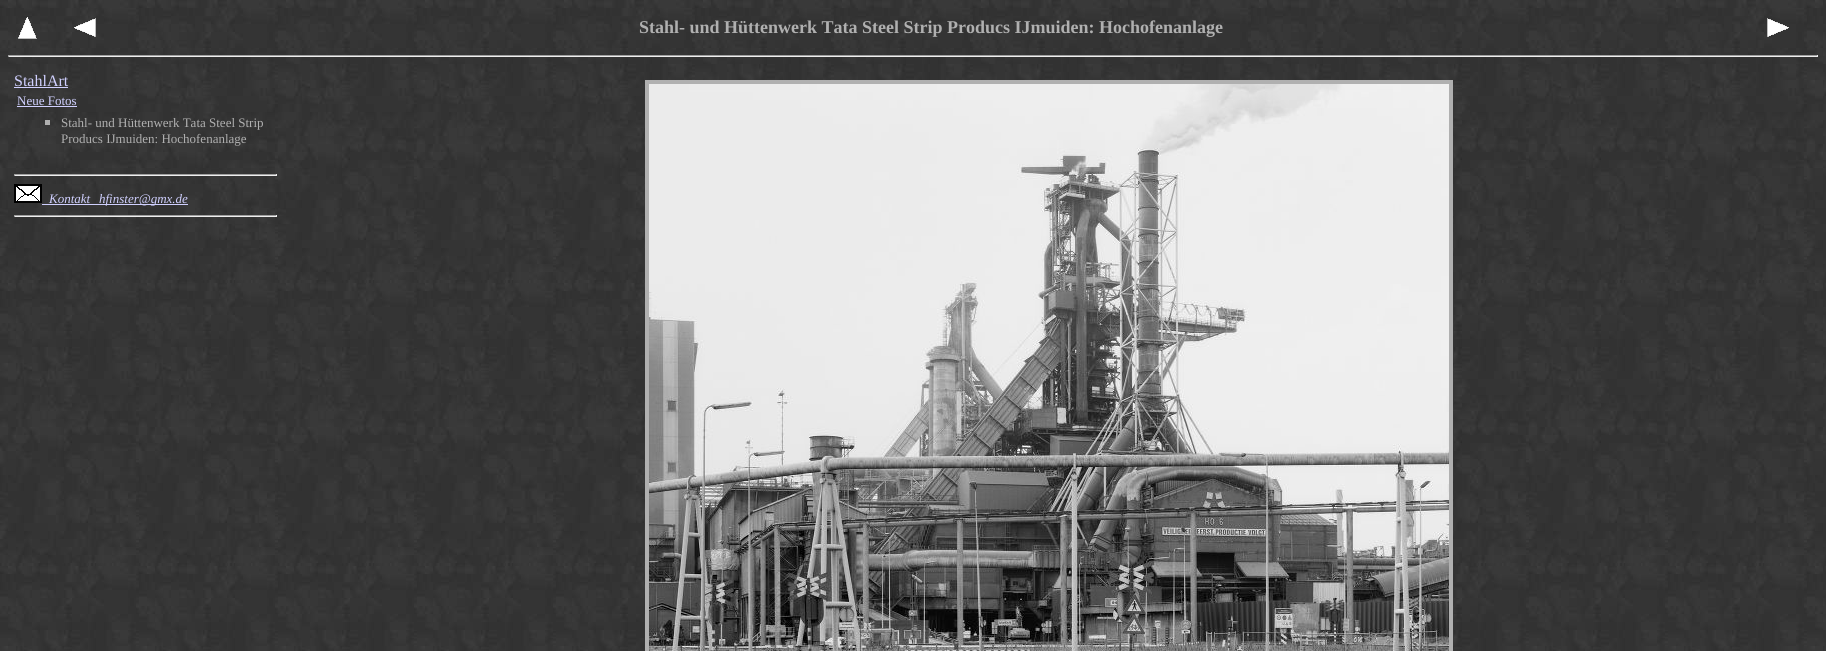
#include <cairo.h>
#include <math.h>
#include <stddef.h>


static void picture(cairo_t *cr, const char *path, double x, double y, double w, double h) {
    cairo_surface_t *image = cairo_image_surface_create_from_png(path);
    cairo_save(cr);
    cairo_set_source_surface(cr, image, x, y);
    cairo_rectangle(cr, x, y, w, h);
    cairo_fill(cr);
    cairo_restore(cr);
    cairo_surface_destroy(image);
}

int main(void) {
    cairo_surface_t *surface = cairo_image_surface_create(CAIRO_FORMAT_RGB24, 1826, 651);
    cairo_t *cr = cairo_create(surface);
    cairo_font_options_t *options = cairo_font_options_create();
    cairo_font_options_set_hint_metrics(options, CAIRO_HINT_METRICS_OFF);
    cairo_font_options_set_hint_style(options, CAIRO_HINT_STYLE_NONE);
    cairo_set_font_options(cr, options);
    cairo_set_miter_limit(cr, 4);
    cairo_set_source_rgb(cr, 1, 1, 1);
    cairo_paint(cr);
    picture(cr, "img1.png", 0, 0, 1826, 651);
    picture(cr, "img2.png", 18, 17, 19, 22);
    picture(cr, "img3.png", 74, 18, 22, 19);
    cairo_select_font_face(cr, "Liberation Serif", CAIRO_FONT_SLANT_NORMAL, CAIRO_FONT_WEIGHT_BOLD);
    cairo_set_font_size(cr, 18);
    cairo_set_source_rgb(cr, 0.69, 0.69, 0.69);
    cairo_move_to(cr, 639, 33);
    cairo_show_text(cr, "Stahl- und Hüttenwerk Tata Steel Strip Producs IJmuiden: Hochofenanlage");
    picture(cr, "img4.png", 1767, 18, 22, 19);
    cairo_set_source_rgb(cr, 0.624, 0.624, 0.624);
    cairo_rectangle(cr, 8, 55, 1810, 1);
    cairo_fill(cr);
    cairo_set_source_rgb(cr, 0.933, 0.933, 0.933);
    cairo_rectangle(cr, 1817, 55, 1, 2);
    cairo_fill(cr);
    cairo_rectangle(cr, 8, 56, 1810, 1);
    cairo_fill(cr);
    cairo_set_source_rgb(cr, 0.624, 0.624, 0.624);
    cairo_rectangle(cr, 8, 55, 1, 2);
    cairo_fill(cr);
    cairo_select_font_face(cr, "Liberation Serif", CAIRO_FONT_SLANT_NORMAL, CAIRO_FONT_WEIGHT_NORMAL);
    cairo_set_font_size(cr, 16);
    cairo_set_source_rgb(cr, 0.816, 0.816, 1);
    cairo_move_to(cr, 14, 86);
    cairo_show_text(cr, "StahlArt");
    cairo_rectangle(cr, 14, 87, 54, 1);
    cairo_fill(cr);
    cairo_set_font_size(cr, 13);
    cairo_move_to(cr, 17, 105);
    cairo_show_text(cr, "Neue Fotos");
    cairo_rectangle(cr, 17, 106, 60, 1);
    cairo_fill(cr);
    cairo_set_source_rgb(cr, 0.69, 0.69, 0.69);
    cairo_rectangle(cr, 45, 120, 5, 5);
    cairo_fill(cr);
    cairo_move_to(cr, 61, 127);
    cairo_show_text(cr, "Stahl- und Hüttenwerk Tata Steel Strip");
    cairo_move_to(cr, 61, 143);
    cairo_show_text(cr, "Producs IJmuiden: Hochofenanlage");
    cairo_set_source_rgb(cr, 0.624, 0.624, 0.624);
    cairo_rectangle(cr, 14, 174, 263, 1);
    cairo_fill(cr);
    cairo_set_source_rgb(cr, 0.933, 0.933, 0.933);
    cairo_rectangle(cr, 276, 174, 1, 2);
    cairo_fill(cr);
    cairo_rectangle(cr, 14, 175, 263, 1);
    cairo_fill(cr);
    cairo_set_source_rgb(cr, 0.624, 0.624, 0.624);
    cairo_rectangle(cr, 14, 174, 1, 2);
    cairo_fill(cr);
    picture(cr, "img5.png", 14, 184, 28, 19);
    cairo_select_font_face(cr, "Liberation Serif", CAIRO_FONT_SLANT_ITALIC, CAIRO_FONT_WEIGHT_NORMAL);
    cairo_set_source_rgb(cr, 0.816, 0.816, 1);
    cairo_move_to(cr, 49, 203);
    cairo_show_text(cr, "Kontakt");
    cairo_rectangle(cr, 42, 204, 146, 1);
    cairo_fill(cr);
    cairo_move_to(cr, 99, 203);
    cairo_show_text(cr, "hfinster@gmx.de");
    cairo_set_source_rgb(cr, 0.624, 0.624, 0.624);
    cairo_rectangle(cr, 14, 215, 263, 1);
    cairo_fill(cr);
    cairo_set_source_rgb(cr, 0.933, 0.933, 0.933);
    cairo_rectangle(cr, 276, 215, 1, 2);
    cairo_fill(cr);
    cairo_rectangle(cr, 14, 216, 263, 1);
    cairo_fill(cr);
    cairo_set_source_rgb(cr, 0.624, 0.624, 0.624);
    cairo_rectangle(cr, 14, 215, 1, 2);
    cairo_fill(cr);
    cairo_rectangle(cr, 647, 82, 804, 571);
    cairo_set_source_rgb(cr, 0.69, 0.69, 0.69);
    cairo_set_line_width(cr, 4);
    cairo_stroke(cr);
    picture(cr, "img6.png", 649, 84, 800, 567);
    cairo_surface_write_to_png(surface, "page.png");
    cairo_font_options_destroy(options);
    cairo_destroy(cr);
    cairo_surface_destroy(surface);
    return 0;
}
